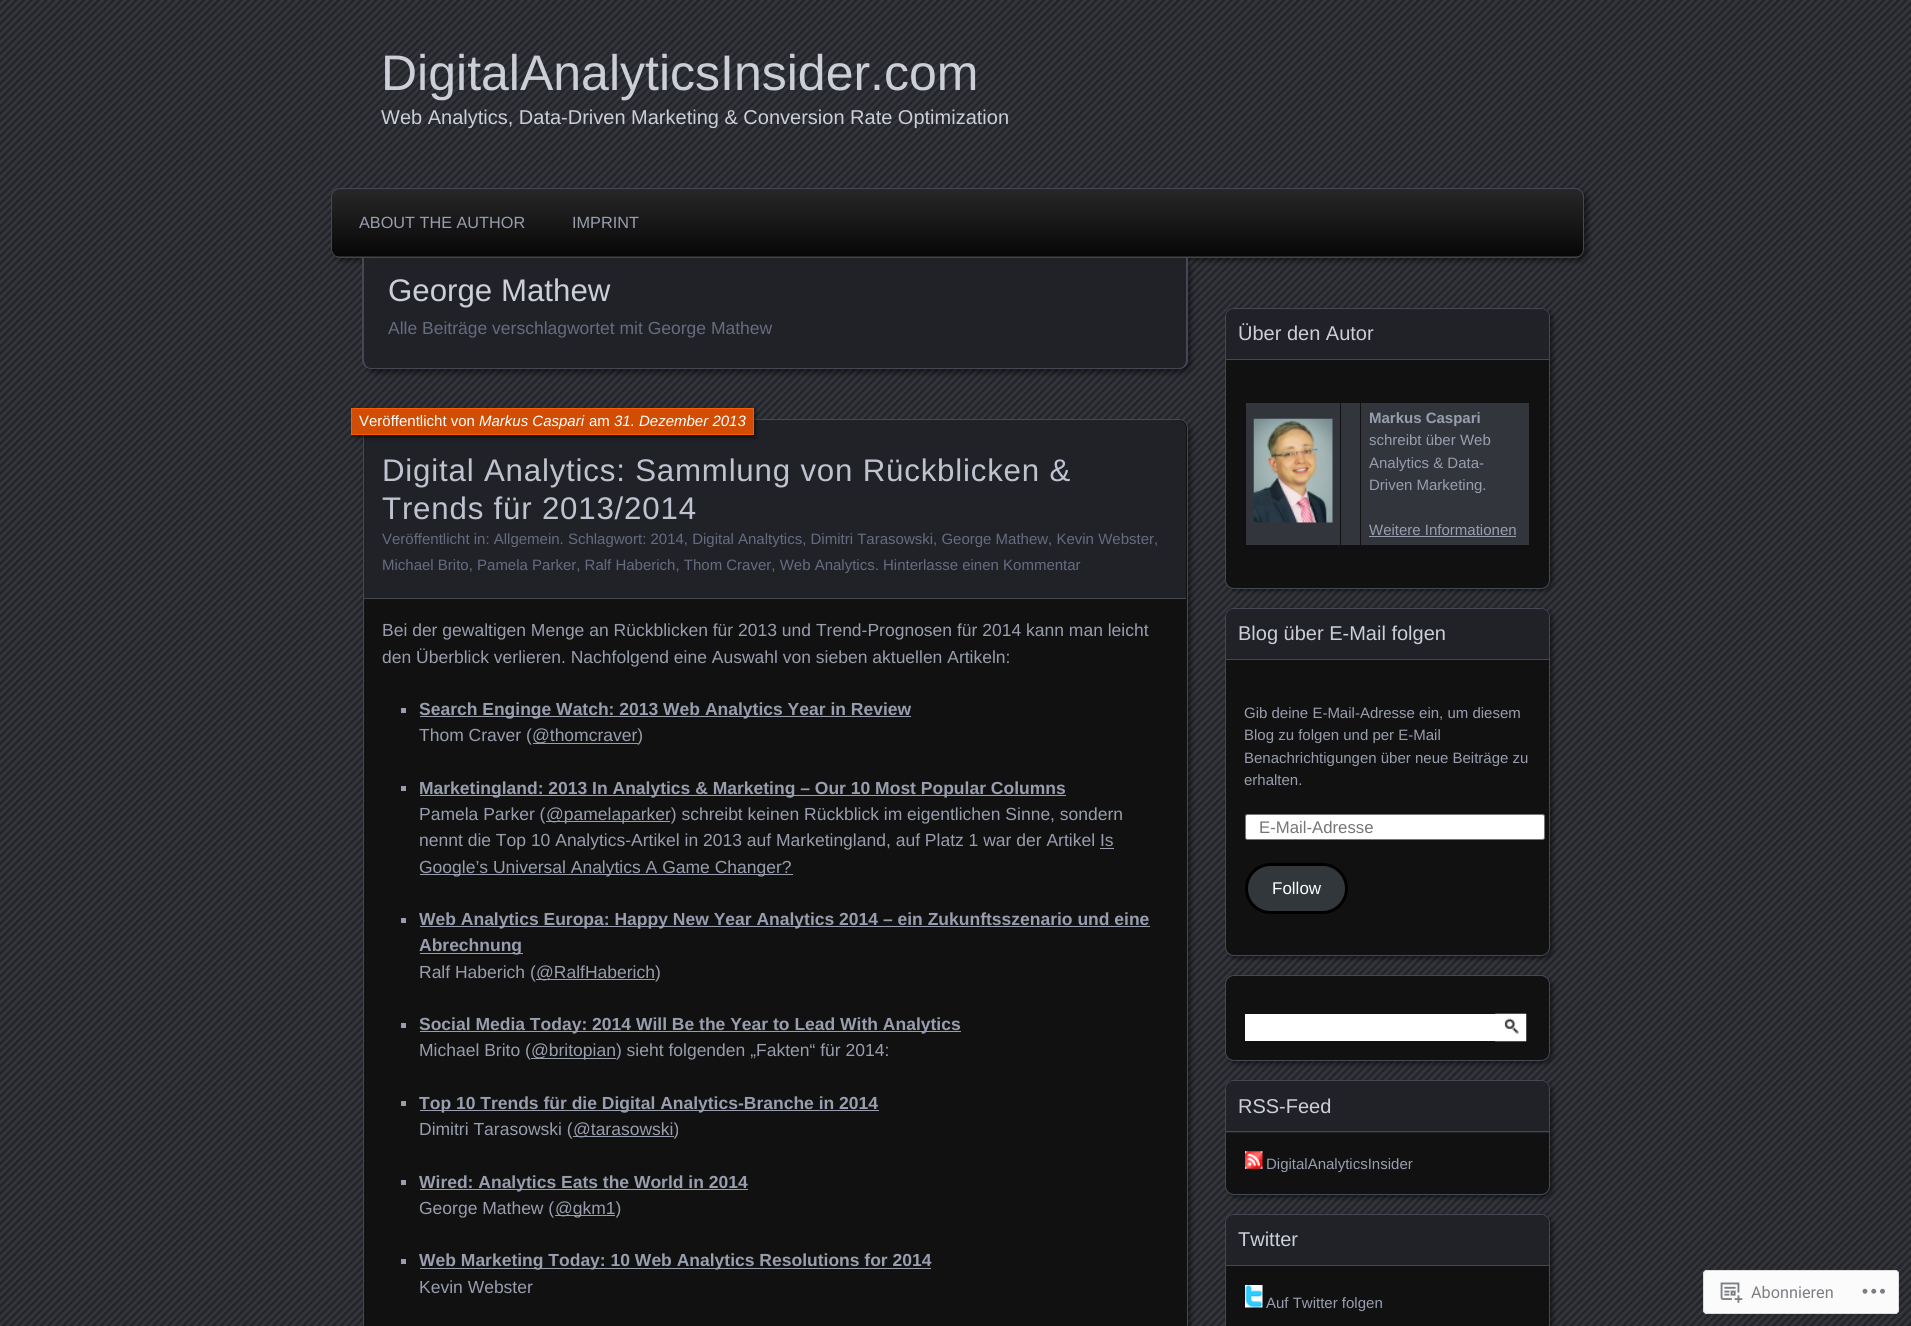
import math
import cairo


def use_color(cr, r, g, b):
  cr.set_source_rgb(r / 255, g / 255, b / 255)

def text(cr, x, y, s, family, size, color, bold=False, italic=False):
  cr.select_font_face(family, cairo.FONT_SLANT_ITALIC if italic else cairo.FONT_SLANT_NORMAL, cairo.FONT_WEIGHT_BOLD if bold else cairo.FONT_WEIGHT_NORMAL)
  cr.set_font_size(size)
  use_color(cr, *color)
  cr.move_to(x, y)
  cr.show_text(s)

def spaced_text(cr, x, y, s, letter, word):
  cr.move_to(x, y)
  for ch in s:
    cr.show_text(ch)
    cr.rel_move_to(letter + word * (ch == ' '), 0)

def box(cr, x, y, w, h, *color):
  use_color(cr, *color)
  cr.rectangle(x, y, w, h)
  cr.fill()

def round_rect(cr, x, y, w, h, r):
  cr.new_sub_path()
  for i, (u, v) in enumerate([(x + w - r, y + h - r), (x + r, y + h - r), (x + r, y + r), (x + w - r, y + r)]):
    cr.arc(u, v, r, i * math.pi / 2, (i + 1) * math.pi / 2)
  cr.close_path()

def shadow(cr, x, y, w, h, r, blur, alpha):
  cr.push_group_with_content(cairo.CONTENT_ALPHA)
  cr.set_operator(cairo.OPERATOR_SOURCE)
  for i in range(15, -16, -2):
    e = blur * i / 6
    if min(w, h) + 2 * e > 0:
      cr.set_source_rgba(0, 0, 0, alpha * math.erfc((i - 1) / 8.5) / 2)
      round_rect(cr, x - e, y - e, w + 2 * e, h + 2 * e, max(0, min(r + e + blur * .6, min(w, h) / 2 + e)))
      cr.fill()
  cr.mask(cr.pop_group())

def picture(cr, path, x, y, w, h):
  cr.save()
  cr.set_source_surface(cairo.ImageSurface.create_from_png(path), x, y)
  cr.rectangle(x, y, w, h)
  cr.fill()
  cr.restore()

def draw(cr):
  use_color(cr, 32, 34, 40)
  cr.paint()
  picture(cr, "img_01.png", 0, 0, 1911, 1326)
  use_color(cr, 0, 0, 0)
  shadow(cr, 335, 191, 1253, 70, 9, 2.5, 0.45)
  cr.save()
  round_rect(cr, 331, 188, 1253, 70, 9)
  cr.clip()
  gradient = cairo.LinearGradient(958, 189, 958, 256)
  gradient.add_color_stop_rgba(0.01, 0.153, 0.153, 0.153, 1)
  gradient.add_color_stop_rgba(1, 0.027, 0.027, 0.027, 1)
  cr.set_source(gradient)
  cr.rectangle(331, 189, 1253, 67)
  cr.fill()
  gradient = cairo.LinearGradient(958, 256, 958, 324)
  gradient.add_color_stop_rgba(0.01, 0.153, 0.153, 0.153, 1)
  gradient.add_color_stop_rgba(1, 0.027, 0.027, 0.027, 1)
  cr.set_source(gradient)
  cr.rectangle(331, 256, 1253, 2)
  cr.fill()
  cr.restore()
  round_rect(cr, 331.5, 188.5, 1252, 69, 8.5)
  use_color(cr, 68, 72, 85)
  cr.set_line_width(1)
  cr.stroke()
  use_color(cr, 0, 0, 0)
  shadow(cr, 366, 261, 825, 112, 9, 2.5, 0.45)
  use_color(cr, 32, 34, 40)
  cr.new_path()
  cr.move_to(364, 258)
  cr.line_to(1186, 258)
  cr.line_to(1186, 360)
  cr.curve_to(1186, 364.5, 1182.5, 368, 1178, 368)
  cr.line_to(372, 368)
  cr.curve_to(367.5, 368, 364, 364.5, 364, 360)
  cr.close_path()
  cr.fill()
  use_color(cr, 68, 72, 85)
  cr.set_fill_rule(cairo.FILL_RULE_EVEN_ODD)
  cr.new_path()
  cr.move_to(362, 258)
  cr.line_to(1188, 258)
  cr.line_to(1188, 360)
  cr.curve_to(1188, 365, 1184, 369, 1179, 369)
  cr.line_to(371, 369)
  cr.curve_to(366, 369, 362, 365, 362, 360)
  cr.close_path()
  cr.move_to(364, 258)
  cr.line_to(1186, 258)
  cr.line_to(1186, 360)
  cr.curve_to(1186, 364, 1183, 368, 1179, 368)
  cr.line_to(371, 368)
  cr.curve_to(367, 368, 364, 364, 364, 360)
  cr.close_path()
  cr.fill()
  use_color(cr, 0, 0, 0)
  shadow(cr, 366, 423, 825, 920, 9, 2.5, 0.45)
  use_color(cr, 17, 17, 17)
  round_rect(cr, 363.5, 419.5, 824, 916, 8.5)
  cr.fill_preserve()
  use_color(cr, 68, 72, 85)
  cr.stroke()
  use_color(cr, 32, 34, 40)
  cr.new_path()
  cr.move_to(373, 420)
  cr.line_to(1177, 420)
  cr.curve_to(1182, 420, 1186, 424, 1186, 429)
  cr.line_to(1186, 599)
  cr.line_to(364, 599)
  cr.line_to(364, 429)
  cr.curve_to(364, 424, 368, 420, 373, 420)
  cr.close_path()
  cr.fill()
  box(cr, 364, 598, 822, 1, 68, 72, 85)
  use_color(cr, 0, 0, 0)
  shadow(cr, 354, 410, 402, 28, 0, 2, 0.45)
  use_color(cr, 210, 77, 4)
  cr.rectangle(351.5, 408.5, 402, 26)
  cr.fill_preserve()
  use_color(cr, 255, 90, 0)
  cr.stroke()
  box(cr, 401, 708, 5, 5, 152, 158, 174)
  box(cr, 420, 716, 491, 1, 152, 158, 174)
  box(cr, 533, 743, 105, 1, 152, 158, 174)
  box(cr, 401, 786, 5, 5, 152, 158, 174)
  box(cr, 420, 795, 646, 1, 152, 158, 174)
  box(cr, 546, 821, 124, 1, 152, 158, 174)
  box(cr, 1100, 848, 14, 1, 152, 158, 174)
  box(cr, 420, 874, 373, 1, 152, 158, 174)
  box(cr, 401, 918, 5, 5, 152, 158, 174)
  box(cr, 420, 926, 730, 1, 152, 158, 174)
  box(cr, 420, 953, 103, 1, 152, 158, 174)
  box(cr, 536, 979, 119, 1, 152, 158, 174)
  box(cr, 401, 1023, 5, 5, 152, 158, 174)
  box(cr, 420, 1031, 541, 1, 152, 158, 174)
  box(cr, 531, 1058, 85, 1, 152, 158, 174)
  box(cr, 401, 1101, 5, 5, 152, 158, 174)
  box(cr, 420, 1110, 459, 1, 152, 158, 174)
  box(cr, 573, 1136, 101, 1, 152, 158, 174)
  box(cr, 401, 1180, 5, 5, 152, 158, 174)
  box(cr, 420, 1189, 328, 1, 152, 158, 174)
  box(cr, 555, 1215, 60, 1, 152, 158, 174)
  box(cr, 401, 1259, 5, 5, 152, 158, 174)
  box(cr, 420, 1268, 511, 1, 152, 158, 174)
  use_color(cr, 0, 0, 0)
  shadow(cr, 1228, 310, 325, 281, 9, 2, 0.45)
  use_color(cr, 17, 17, 17)
  round_rect(cr, 1225.5, 308.5, 324, 280, 8.5)
  cr.fill_preserve()
  use_color(cr, 68, 72, 85)
  cr.stroke()
  use_color(cr, 32, 34, 40)
  cr.new_path()
  cr.move_to(1234, 309)
  cr.line_to(1541, 309)
  cr.curve_to(1545.5, 309, 1549, 312.5, 1549, 317)
  cr.line_to(1549, 360)
  cr.line_to(1226, 360)
  cr.line_to(1226, 317)
  cr.curve_to(1226, 312.5, 1229.5, 309, 1234, 309)
  cr.close_path()
  cr.fill()
  box(cr, 1226, 359, 323, 1, 68, 72, 85)
  box(cr, 1246, 403, 94, 142, 51, 53, 61)
  picture(cr, "img_02.png", 1253, 418, 80, 105)
  box(cr, 1341, 403, 19, 142, 51, 53, 61)
  box(cr, 1361, 403, 168, 142, 51, 53, 61)
  box(cr, 1369, 536, 147, 1, 152, 158, 174)
  use_color(cr, 0, 0, 0)
  shadow(cr, 1228, 610, 325, 349, 9, 2, 0.45)
  use_color(cr, 17, 17, 17)
  round_rect(cr, 1225.5, 608.5, 324, 347, 8.5)
  cr.fill_preserve()
  use_color(cr, 68, 72, 85)
  cr.stroke()
  use_color(cr, 32, 34, 40)
  cr.new_path()
  cr.move_to(1234, 609)
  cr.line_to(1541, 609)
  cr.curve_to(1545.5, 609, 1549, 612.5, 1549, 617)
  cr.line_to(1549, 660)
  cr.line_to(1226, 660)
  cr.line_to(1226, 617)
  cr.curve_to(1226, 612.5, 1229.5, 609, 1234, 609)
  cr.close_path()
  cr.fill()
  box(cr, 1226, 659, 323, 1, 68, 72, 85)
  use_color(cr, 255, 255, 255)
  round_rect(cr, 1245.5, 814.5, 299, 25, 2)
  cr.fill_preserve()
  use_color(cr, 118, 118, 118)
  cr.stroke()
  use_color(cr, 50, 55, 60)
  round_rect(cr, 1246.5, 864.5, 100, 48, 24)
  cr.fill_preserve()
  use_color(cr, 0, 0, 0)
  cr.set_line_width(3)
  cr.stroke()
  use_color(cr, 0, 0, 0)
  shadow(cr, 1228, 978, 325, 86, 9, 2, 0.45)
  use_color(cr, 17, 17, 17)
  round_rect(cr, 1225.5, 975.5, 324, 85, 8.5)
  cr.fill_preserve()
  use_color(cr, 68, 72, 85)
  cr.set_line_width(1)
  cr.stroke()
  box(cr, 1245, 1014, 250, 27, 255, 255, 255)
  picture(cr, "img_03.png", 1495, 1013, 32, 29)
  use_color(cr, 0, 0, 0)
  shadow(cr, 1228, 1083, 325, 115, 9, 2, 0.45)
  use_color(cr, 17, 17, 17)
  round_rect(cr, 1225.5, 1080.5, 324, 114, 8.5)
  cr.fill_preserve()
  use_color(cr, 68, 72, 85)
  cr.stroke()
  use_color(cr, 32, 34, 40)
  cr.new_path()
  cr.move_to(1234, 1081)
  cr.line_to(1541, 1081)
  cr.curve_to(1545.5, 1081, 1549, 1084.5, 1549, 1089)
  cr.line_to(1549, 1133)
  cr.line_to(1226, 1133)
  cr.line_to(1226, 1089)
  cr.curve_to(1226, 1084.5, 1229.5, 1081, 1234, 1081)
  cr.close_path()
  cr.fill()
  box(cr, 1226, 1131, 323, 1, 68, 72, 85)
  picture(cr, "img_04.png", 1245, 1151, 18, 18)
  use_color(cr, 0, 0, 0)
  shadow(cr, 1228, 1216, 325, 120, 9, 2, 0.45)
  use_color(cr, 17, 17, 17)
  round_rect(cr, 1225.5, 1214.5, 324, 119, 8.5)
  cr.fill_preserve()
  use_color(cr, 68, 72, 85)
  cr.stroke()
  use_color(cr, 32, 34, 40)
  cr.new_path()
  cr.move_to(1234, 1215)
  cr.line_to(1541, 1215)
  cr.curve_to(1545.5, 1215, 1549, 1218.5, 1549, 1223)
  cr.line_to(1549, 1266)
  cr.line_to(1226, 1266)
  cr.line_to(1226, 1223)
  cr.curve_to(1226, 1218.5, 1229.5, 1215, 1234, 1215)
  cr.close_path()
  cr.fill()
  box(cr, 1226, 1265, 323, 1, 68, 72, 85)
  picture(cr, "img_05.png", 1245, 1285, 18, 23)
  cr.set_source_rgba(1, 1, 1, 0.98)
  round_rect(cr, 1703, 1270, 196, 44, 4)
  cr.fill()
  round_rect(cr, 1703.5, 1270.5, 195, 43, 3.5)
  cr.set_source_rgba(0.863, 0.863, 0.871, 0.98)
  cr.stroke()
  picture(cr, "img_06.png", 1720, 1282, 23, 21)
  picture(cr, "img_07.png", 1862, 1288, 23, 6)
  text(cr, 381, 90, "DigitalAnalyticsInsider.com", "Liberation Sans", 50, (204, 207, 215))
  text(cr, 381, 124, "Web Analytics, Data-Driven Marketing & Conversion Rate Optimization", "Liberation Sans", 20, (204, 207, 215))
  text(cr, 359, 228, "ABOUT THE AUTHOR", "Liberation Sans", 16.25, (152, 158, 174))
  text(cr, 572, 228, "IMPRINT", "Liberation Sans", 16.25, (152, 158, 174))
  text(cr, 388, 301, "George Mathew", "Liberation Sans", 31.25, (204, 207, 215))
  text(cr, 388, 334, "Alle Beiträge verschlagwortet mit George Mathew", "Liberation Sans", 17.5, (102, 108, 127))
  text(cr, 359, 426, "Veröffentlicht von", "Liberation Sans", 15, (255, 255, 255))
  text(cr, 479, 426, "Markus Caspari", "Liberation Sans", 15, (255, 255, 255), italic=True)
  text(cr, 589, 426, "am", "Liberation Sans", 15, (255, 255, 255))
  text(cr, 614, 426, "31. Dezember 2013", "Liberation Sans", 15, (255, 255, 255), italic=True)
  cr.select_font_face("Liberation Sans")
  cr.set_font_size(31.25)
  use_color(cr, 191, 195, 207)
  spaced_text(cr, 382, 481, "Digital Analytics: Sammlung von Rückblicken &", 0.8, 0)
  spaced_text(cr, 382, 519, "Trends für 2013/2014", 0.8, 0)
  text(cr, 382, 544, "Veröffentlicht in: Allgemein. Schlagwort: 2014, Digital Analtytics, Dimitri Tarasowski, George Mathew, Kevin Webster,", "Liberation Sans", 15, (102, 108, 127))
  text(cr, 382, 570, "Michael Brito, Pamela Parker, Ralf Haberich, Thom Craver, Web Analytics. Hinterlasse einen Kommentar", "Liberation Sans", 15, (102, 108, 127))
  text(cr, 382, 636, "Bei der gewaltigen Menge an Rückblicken für 2013 und Trend-Prognosen für 2014 kann man leicht", "Liberation Sans", 17.5, (152, 158, 174))
  text(cr, 382, 663, "den Überblick verlieren. Nachfolgend eine Auswahl von sieben aktuellen Artikeln:", "Liberation Sans", 17.5, (152, 158, 174))
  text(cr, 419, 715, "Search Enginge Watch: 2013 Web Analytics Year in Review", "Liberation Sans", 17.5, (152, 158, 174), bold=True)
  text(cr, 419, 741, "Thom Craver (", "Liberation Sans", 17.5, (152, 158, 174))
  text(cr, 532, 741, "@thomcraver)", "Liberation Sans", 17.5, (152, 158, 174))
  text(cr, 419, 794, "Marketingland: 2013 In Analytics & Marketing – Our 10 Most Popular Columns", "Liberation Sans", 17.5, (152, 158, 174), bold=True)
  text(cr, 419, 820, "Pamela Parker (", "Liberation Sans", 17.5, (152, 158, 174))
  text(cr, 546, 820, "@pamelaparker) schreibt keinen Rückblick im eigentlichen Sinne, sondern", "Liberation Sans", 17.5, (152, 158, 174))
  text(cr, 419, 846, "nennt die Top 10 Analytics-Artikel in 2013 auf Marketingland, auf Platz 1 war der Artikel Is", "Liberation Sans", 17.5, (152, 158, 174))
  text(cr, 419, 873, "Google’s Universal Analytics A Game Changer?", "Liberation Sans", 17.5, (152, 158, 174))
  text(cr, 419, 925, "Web Analytics Europa: Happy New Year Analytics 2014 – ein Zukunftsszenario und eine", "Liberation Sans", 17.5, (152, 158, 174), bold=True)
  text(cr, 419, 951, "Abrechnung", "Liberation Sans", 17.5, (152, 158, 174), bold=True)
  text(cr, 419, 978, "Ralf Haberich (", "Liberation Sans", 17.5, (152, 158, 174))
  text(cr, 536, 978, "@RalfHaberich)", "Liberation Sans", 17.5, (152, 158, 174))
  text(cr, 419, 1030, "Social Media Today: 2014 Will Be the Year to Lead With Analytics", "Liberation Sans", 17.5, (152, 158, 174), bold=True)
  text(cr, 419, 1056, "Michael Brito (", "Liberation Sans", 17.5, (152, 158, 174))
  text(cr, 531, 1056, "@britopian) sieht folgenden „Fakten“ für 2014:", "Liberation Sans", 17.5, (152, 158, 174))
  text(cr, 419, 1109, "Top 10 Trends für die Digital Analytics-Branche in 2014", "Liberation Sans", 17.5, (152, 158, 174), bold=True)
  text(cr, 419, 1135, "Dimitri Tarasowski (", "Liberation Sans", 17.5, (152, 158, 174))
  text(cr, 573, 1135, "@tarasowski)", "Liberation Sans", 17.5, (152, 158, 174))
  text(cr, 419, 1188, "Wired: Analytics Eats the World in 2014", "Liberation Sans", 17.5, (152, 158, 174), bold=True)
  text(cr, 419, 1214, "George Mathew (", "Liberation Sans", 17.5, (152, 158, 174))
  text(cr, 555, 1214, "@gkm1)", "Liberation Sans", 17.5, (152, 158, 174))
  text(cr, 419, 1266, "Web Marketing Today: 10 Web Analytics Resolutions for 2014", "Liberation Sans", 17.5, (152, 158, 174), bold=True)
  text(cr, 419, 1293, "Kevin Webster", "Liberation Sans", 17.5, (152, 158, 174))
  text(cr, 1238, 340, "Über den Autor", "Liberation Sans", 20, (204, 207, 215))
  text(cr, 1369, 423, "Markus Caspari", "Liberation Sans", 15, (152, 158, 174), bold=True)
  text(cr, 1369, 445, "schreibt über Web", "Liberation Sans", 15, (152, 158, 174))
  text(cr, 1369, 468, "Analytics & Data-", "Liberation Sans", 15, (152, 158, 174))
  text(cr, 1369, 490, "Driven Marketing.", "Liberation Sans", 15, (152, 158, 174))
  text(cr, 1369, 535, "Weitere Informationen", "Liberation Sans", 15, (152, 158, 174))
  text(cr, 1238, 640, "Blog über E-Mail folgen", "Liberation Sans", 20, (204, 207, 215))
  text(cr, 1244, 718, "Gib deine E-Mail-Adresse ein, um diesem", "Liberation Sans", 15, (152, 158, 174))
  text(cr, 1244, 740, "Blog zu folgen und per E-Mail", "Liberation Sans", 15, (152, 158, 174))
  text(cr, 1244, 763, "Benachrichtigungen über neue Beiträge zu", "Liberation Sans", 15, (152, 158, 174))
  text(cr, 1244, 785, "erhalten.", "Liberation Sans", 15, (152, 158, 174))
  text(cr, 1259, 833, "E-Mail-Adresse", "Liberation Sans", 16.75, (117, 117, 117))
  text(cr, 1272, 894, "Follow", "Liberation Sans", 17, (255, 255, 255))
  text(cr, 1238, 1113, "RSS-Feed", "Liberation Sans", 20, (204, 207, 215))
  text(cr, 1266, 1169, "DigitalAnalyticsInsider", "Liberation Sans", 15, (152, 158, 174))
  text(cr, 1238, 1246, "Twitter", "Liberation Sans", 20, (204, 207, 215))
  text(cr, 1266, 1308, "Auf Twitter folgen", "Liberation Sans", 15, (152, 158, 174))
  text(cr, 1751, 1298, "Abonnieren", "Roboto", 16.25, (123, 127, 132))


surface = cairo.ImageSurface(cairo.FORMAT_RGB24, 1911, 1326)
cr = cairo.Context(surface)
options = cairo.FontOptions()
options.set_hint_metrics(cairo.HINT_METRICS_OFF)
options.set_hint_style(cairo.HINT_STYLE_NONE)
cr.set_font_options(options)
cr.set_miter_limit(4)
draw(cr)
surface.write_to_png("out.png")
